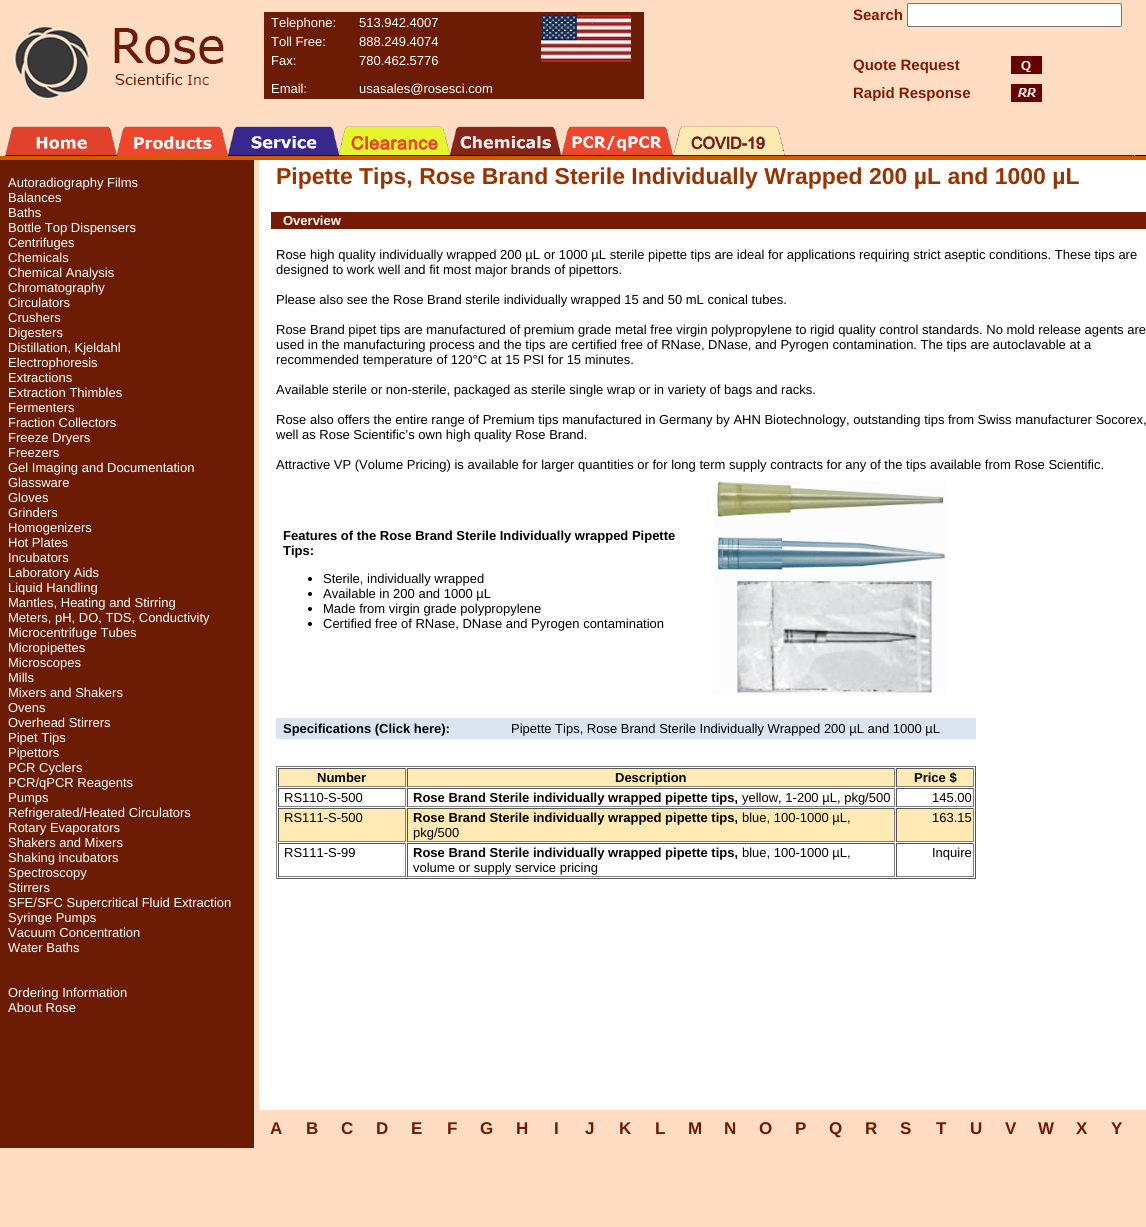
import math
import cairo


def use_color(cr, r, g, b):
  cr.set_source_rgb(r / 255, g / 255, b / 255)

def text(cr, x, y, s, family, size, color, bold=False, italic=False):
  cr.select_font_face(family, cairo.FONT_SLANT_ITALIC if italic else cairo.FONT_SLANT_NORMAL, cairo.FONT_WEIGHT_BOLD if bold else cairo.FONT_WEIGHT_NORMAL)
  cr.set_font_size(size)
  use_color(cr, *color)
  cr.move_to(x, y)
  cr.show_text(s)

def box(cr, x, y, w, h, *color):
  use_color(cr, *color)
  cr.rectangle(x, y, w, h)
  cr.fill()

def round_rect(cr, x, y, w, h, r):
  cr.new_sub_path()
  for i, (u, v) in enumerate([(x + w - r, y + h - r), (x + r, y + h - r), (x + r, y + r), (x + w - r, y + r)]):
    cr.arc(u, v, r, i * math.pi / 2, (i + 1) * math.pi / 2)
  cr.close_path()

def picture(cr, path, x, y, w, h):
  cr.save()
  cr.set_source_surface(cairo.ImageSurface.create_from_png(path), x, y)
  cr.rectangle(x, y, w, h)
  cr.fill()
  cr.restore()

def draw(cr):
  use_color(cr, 255, 220, 194)
  cr.paint()
  picture(cr, "img_01.png", 14, 26, 210, 73)
  box(cr, 264, 12, 380, 87, 108, 28, 5)
  picture(cr, "img_02.png", 541, 15, 90, 47)
  use_color(cr, 255, 255, 255)
  round_rect(cr, 907.5, 3.5, 214, 23, 1.5)
  cr.fill_preserve()
  use_color(cr, 118, 118, 118)
  cr.set_line_width(1)
  cr.stroke()
  picture(cr, "img_03.png", 1011, 56, 31, 18)
  picture(cr, "img_04.png", 1011, 84, 31, 18)
  picture(cr, "img_05.png", 5, 126, 1130, 30)
  box(cr, 1135, 155, 11, 1, 0, 0, 0)
  box(cr, 0, 156, 1146, 4, 216, 88, 2)
  box(cr, 0, 160, 254, 988, 108, 28, 5)
  box(cr, 259, 160, 887, 950, 255, 255, 255)
  box(cr, 271, 212, 875, 17, 118, 28, 5)
  use_color(cr, 0, 0, 0)
  cr.arc(310, 579, 2, 0, 2 * math.pi)
  cr.fill()
  cr.arc(310, 594, 2, 0, 2 * math.pi)
  cr.fill()
  cr.arc(310, 609, 2, 0, 2 * math.pi)
  cr.fill()
  cr.arc(310, 624, 2, 0, 2 * math.pi)
  cr.fill()
  picture(cr, "img_06.png", 713, 481, 234, 214)
  box(cr, 276, 718, 700, 21, 219, 229, 241)
  box(cr, 276, 766, 700, 1, 128, 128, 128)
  box(cr, 975, 766, 1, 113, 85, 85, 85)
  box(cr, 276, 878, 700, 1, 85, 85, 85)
  box(cr, 276, 766, 1, 113, 128, 128, 128)
  box(cr, 279, 768, 694, 19, 255, 233, 180)
  box(cr, 278, 768, 128, 1, 85, 85, 85)
  box(cr, 405, 768, 1, 19, 128, 128, 128)
  box(cr, 278, 786, 128, 1, 128, 128, 128)
  box(cr, 278, 768, 1, 19, 85, 85, 85)
  box(cr, 407, 768, 488, 1, 85, 85, 85)
  box(cr, 894, 768, 1, 19, 128, 128, 128)
  box(cr, 407, 786, 488, 1, 128, 128, 128)
  box(cr, 407, 768, 1, 19, 85, 85, 85)
  box(cr, 896, 768, 78, 1, 85, 85, 85)
  box(cr, 973, 768, 1, 19, 128, 128, 128)
  box(cr, 896, 786, 78, 1, 128, 128, 128)
  box(cr, 896, 768, 1, 19, 85, 85, 85)
  box(cr, 278, 788, 128, 1, 85, 85, 85)
  box(cr, 405, 788, 1, 19, 128, 128, 128)
  box(cr, 278, 806, 128, 1, 128, 128, 128)
  box(cr, 278, 788, 1, 19, 85, 85, 85)
  box(cr, 407, 788, 488, 1, 85, 85, 85)
  box(cr, 894, 788, 1, 19, 128, 128, 128)
  box(cr, 407, 806, 488, 1, 128, 128, 128)
  box(cr, 407, 788, 1, 19, 85, 85, 85)
  box(cr, 896, 788, 78, 1, 85, 85, 85)
  box(cr, 973, 788, 1, 19, 128, 128, 128)
  box(cr, 896, 806, 78, 1, 128, 128, 128)
  box(cr, 896, 788, 1, 19, 85, 85, 85)
  box(cr, 279, 808, 694, 34, 255, 233, 180)
  box(cr, 278, 808, 128, 1, 85, 85, 85)
  box(cr, 405, 808, 1, 34, 128, 128, 128)
  box(cr, 278, 841, 128, 1, 128, 128, 128)
  box(cr, 278, 808, 1, 34, 85, 85, 85)
  box(cr, 407, 808, 488, 1, 85, 85, 85)
  box(cr, 894, 808, 1, 34, 128, 128, 128)
  box(cr, 407, 841, 488, 1, 128, 128, 128)
  box(cr, 407, 808, 1, 34, 85, 85, 85)
  box(cr, 896, 808, 78, 1, 85, 85, 85)
  box(cr, 973, 808, 1, 34, 128, 128, 128)
  box(cr, 896, 841, 78, 1, 128, 128, 128)
  box(cr, 896, 808, 1, 34, 85, 85, 85)
  box(cr, 278, 843, 128, 1, 85, 85, 85)
  box(cr, 405, 843, 1, 34, 128, 128, 128)
  box(cr, 278, 876, 128, 1, 128, 128, 128)
  box(cr, 278, 843, 1, 34, 85, 85, 85)
  box(cr, 407, 843, 488, 1, 85, 85, 85)
  box(cr, 894, 843, 1, 34, 128, 128, 128)
  box(cr, 407, 876, 488, 1, 128, 128, 128)
  box(cr, 407, 843, 1, 34, 85, 85, 85)
  box(cr, 896, 843, 78, 1, 85, 85, 85)
  box(cr, 973, 843, 1, 34, 128, 128, 128)
  box(cr, 896, 876, 78, 1, 128, 128, 128)
  box(cr, 896, 843, 1, 34, 85, 85, 85)
  text(cr, 271, 27, "Telephone:", "Liberation Sans", 13, (255, 255, 255))
  text(cr, 359, 27, "513.942.4007", "Liberation Sans", 13, (255, 255, 255))
  text(cr, 271, 46, "Toll Free:", "Liberation Sans", 13, (255, 255, 255))
  text(cr, 359, 46, "888.249.4074", "Liberation Sans", 13, (255, 255, 255))
  text(cr, 271, 65, "Fax:", "Liberation Sans", 13, (255, 255, 255))
  text(cr, 359, 65, "780.462.5776", "Liberation Sans", 13, (255, 255, 255))
  text(cr, 271, 93, "Email:", "Liberation Sans", 13, (255, 255, 255))
  text(cr, 359, 93, "usasales@rosesci.com", "Liberation Sans", 13, (255, 255, 255))
  text(cr, 853, 20, "Search", "Liberation Sans", 15, (128, 28, 5), bold=True)
  text(cr, 853, 70, "Quote Request", "Liberation Sans", 15, (128, 28, 5), bold=True)
  text(cr, 853, 98, "Rapid Response", "Liberation Sans", 15, (128, 28, 5), bold=True)
  text(cr, 8, 187, "Autoradiography Films", "Liberation Sans", 13, (255, 255, 255))
  text(cr, 8, 202, "Balances", "Liberation Sans", 13, (255, 255, 255))
  text(cr, 8, 217, "Baths", "Liberation Sans", 13, (255, 255, 255))
  text(cr, 8, 232, "Bottle Top Dispensers", "Liberation Sans", 13, (255, 255, 255))
  text(cr, 8, 247, "Centrifuges", "Liberation Sans", 13, (255, 255, 255))
  text(cr, 8, 262, "Chemicals", "Liberation Sans", 13, (255, 255, 255))
  text(cr, 8, 277, "Chemical Analysis", "Liberation Sans", 13, (255, 255, 255))
  text(cr, 8, 292, "Chromatography", "Liberation Sans", 13, (255, 255, 255))
  text(cr, 8, 307, "Circulators", "Liberation Sans", 13, (255, 255, 255))
  text(cr, 8, 322, "Crushers", "Liberation Sans", 13, (255, 255, 255))
  text(cr, 8, 337, "Digesters", "Liberation Sans", 13, (255, 255, 255))
  text(cr, 8, 352, "Distillation, Kjeldahl", "Liberation Sans", 13, (255, 255, 255))
  text(cr, 8, 367, "Electrophoresis", "Liberation Sans", 13, (255, 255, 255))
  text(cr, 8, 382, "Extractions", "Liberation Sans", 13, (255, 255, 255))
  text(cr, 8, 397, "Extraction Thimbles", "Liberation Sans", 13, (255, 255, 255))
  text(cr, 8, 412, "Fermenters", "Liberation Sans", 13, (255, 255, 255))
  text(cr, 8, 427, "Fraction Collectors", "Liberation Sans", 13, (255, 255, 255))
  text(cr, 8, 442, "Freeze Dryers", "Liberation Sans", 13, (255, 255, 255))
  text(cr, 8, 457, "Freezers", "Liberation Sans", 13, (255, 255, 255))
  text(cr, 8, 472, "Gel Imaging and Documentation", "Liberation Sans", 13, (255, 255, 255))
  text(cr, 8, 487, "Glassware", "Liberation Sans", 13, (255, 255, 255))
  text(cr, 8, 502, "Gloves", "Liberation Sans", 13, (255, 255, 255))
  text(cr, 8, 517, "Grinders", "Liberation Sans", 13, (255, 255, 255))
  text(cr, 8, 532, "Homogenizers", "Liberation Sans", 13, (255, 255, 255))
  text(cr, 8, 547, "Hot Plates", "Liberation Sans", 13, (255, 255, 255))
  text(cr, 8, 562, "Incubators", "Liberation Sans", 13, (255, 255, 255))
  text(cr, 8, 577, "Laboratory Aids", "Liberation Sans", 13, (255, 255, 255))
  text(cr, 8, 592, "Liquid Handling", "Liberation Sans", 13, (255, 255, 255))
  text(cr, 8, 607, "Mantles, Heating and Stirring", "Liberation Sans", 13, (255, 255, 255))
  text(cr, 8, 622, "Meters, pH, DO, TDS, Conductivity", "Liberation Sans", 13, (255, 255, 255))
  text(cr, 8, 637, "Microcentrifuge Tubes", "Liberation Sans", 13, (255, 255, 255))
  text(cr, 8, 652, "Micropipettes", "Liberation Sans", 13, (255, 255, 255))
  text(cr, 8, 667, "Microscopes", "Liberation Sans", 13, (255, 255, 255))
  text(cr, 8, 682, "Mills", "Liberation Sans", 13, (255, 255, 255))
  text(cr, 8, 697, "Mixers and Shakers", "Liberation Sans", 13, (255, 255, 255))
  text(cr, 8, 712, "Ovens", "Liberation Sans", 13, (255, 255, 255))
  text(cr, 8, 727, "Overhead Stirrers", "Liberation Sans", 13, (255, 255, 255))
  text(cr, 8, 742, "Pipet Tips", "Liberation Sans", 13, (255, 255, 255))
  text(cr, 8, 757, "Pipettors", "Liberation Sans", 13, (255, 255, 255))
  text(cr, 8, 772, "PCR Cyclers", "Liberation Sans", 13, (255, 255, 255))
  text(cr, 8, 787, "PCR/qPCR Reagents", "Liberation Sans", 13, (255, 255, 255))
  text(cr, 8, 802, "Pumps", "Liberation Sans", 13, (255, 255, 255))
  text(cr, 8, 817, "Refrigerated/Heated Circulators", "Liberation Sans", 13, (255, 255, 255))
  text(cr, 8, 832, "Rotary Evaporators", "Liberation Sans", 13, (255, 255, 255))
  text(cr, 8, 847, "Shakers and Mixers", "Liberation Sans", 13, (255, 255, 255))
  text(cr, 8, 862, "Shaking incubators", "Liberation Sans", 13, (255, 255, 255))
  text(cr, 8, 877, "Spectroscopy", "Liberation Sans", 13, (255, 255, 255))
  text(cr, 8, 892, "Stirrers", "Liberation Sans", 13, (255, 255, 255))
  text(cr, 8, 907, "SFE/SFC Supercritical Fluid Extraction", "Liberation Sans", 13, (255, 255, 255))
  text(cr, 8, 922, "Syringe Pumps", "Liberation Sans", 13, (255, 255, 255))
  text(cr, 8, 937, "Vacuum Concentration", "Liberation Sans", 13, (255, 255, 255))
  text(cr, 8, 952, "Water Baths", "Liberation Sans", 13, (255, 255, 255))
  text(cr, 8, 997, "Ordering Information", "Liberation Sans", 13, (255, 255, 255))
  text(cr, 8, 1012, "About Rose", "Liberation Sans", 13, (255, 255, 255))
  text(cr, 276, 184, "Pipette Tips, Rose Brand Sterile Individually Wrapped 200 µL and 1000 µL", "Liberation Sans", 23, (153, 51, 0), bold=True)
  text(cr, 283, 225, "Overview", "Liberation Sans", 13, (255, 255, 255), bold=True)
  text(cr, 276, 259, "Rose high quality individually wrapped 200 µL or 1000 µL sterile pipette tips are ideal for applications requiring strict aseptic conditions. These tips are", "Liberation Sans", 13, (0, 0, 0))
  text(cr, 276, 274, "designed to work well and fit most major brands of pipettors.", "Liberation Sans", 13, (0, 0, 0))
  text(cr, 276, 304, "Please also see the Rose Brand sterile individually wrapped 15 and 50 mL conical tubes.", "Liberation Sans", 13, (0, 0, 0))
  text(cr, 276, 334, "Rose Brand pipet tips are manufactured of premium grade metal free virgin polypropylene to rigid quality control standards. No mold release agents are", "Liberation Sans", 13, (0, 0, 0))
  text(cr, 276, 349, "used in the manufacturing process and the tips are certified free of RNase, DNase, and Pyrogen contamination. The tips are autoclavable at a", "Liberation Sans", 13, (0, 0, 0))
  text(cr, 276, 364, "recommended temperature of 120°C at 15 PSI for 15 minutes.", "Liberation Sans", 13, (0, 0, 0))
  text(cr, 276, 394, "Available sterile or non-sterile, packaged as sterile single wrap or in variety of bags and racks.", "Liberation Sans", 13, (0, 0, 0))
  text(cr, 276, 424, "Rose also offers the entire range of Premium tips manufactured in Germany by AHN Biotechnology, outstanding tips from Swiss manufacturer Socorex,", "Liberation Sans", 13, (0, 0, 0))
  text(cr, 276, 439, "well as Rose Scientific’s own high quality Rose Brand.", "Liberation Sans", 13, (0, 0, 0))
  text(cr, 276, 469, "Attractive VP (Volume Pricing) is available for larger quantities or for long term supply contracts for any of the tips available from Rose Scientific.", "Liberation Sans", 13, (0, 0, 0))
  text(cr, 283, 540, "Features of the Rose Brand Sterile Individually wrapped Pipette", "Liberation Sans", 13, (0, 0, 0), bold=True)
  text(cr, 283, 555, "Tips:", "Liberation Sans", 13, (0, 0, 0), bold=True)
  text(cr, 323, 583, "Sterile, individually wrapped", "Liberation Sans", 13, (0, 0, 0))
  text(cr, 323, 598, "Available in 200 and 1000 µL", "Liberation Sans", 13, (0, 0, 0))
  text(cr, 323, 613, "Made from virgin grade polypropylene", "Liberation Sans", 13, (0, 0, 0))
  text(cr, 323, 628, "Certified free of RNase, DNase and Pyrogen contamination", "Liberation Sans", 13, (0, 0, 0))
  text(cr, 283, 733, "Specifications (Click here):", "Liberation Sans", 13, (0, 0, 0), bold=True)
  text(cr, 511, 733, "Pipette Tips, Rose Brand Sterile Individually Wrapped 200 µL and 1000 µL", "Liberation Sans", 13, (0, 0, 0))
  text(cr, 317, 782, "Number", "Liberation Sans", 13, (0, 0, 0), bold=True)
  text(cr, 615, 782, "Description", "Liberation Sans", 13, (0, 0, 0), bold=True)
  text(cr, 914, 782, "Price $", "Liberation Sans", 13, (0, 0, 0), bold=True)
  text(cr, 284, 802, "RS110-S-500", "Liberation Sans", 13, (0, 0, 0))
  text(cr, 413, 802, "Rose Brand Sterile individually wrapped pipette tips,", "Liberation Sans", 13, (0, 0, 0), bold=True)
  text(cr, 742, 802, "yellow, 1-200 µL, pkg/500", "Liberation Sans", 13, (0, 0, 0))
  text(cr, 932, 802, "145.00", "Liberation Sans", 13, (0, 0, 0))
  text(cr, 284, 822, "RS111-S-500", "Liberation Sans", 13, (0, 0, 0))
  text(cr, 413, 822, "Rose Brand Sterile individually wrapped pipette tips,", "Liberation Sans", 13, (0, 0, 0), bold=True)
  text(cr, 742, 822, "blue, 100-1000 µL,", "Liberation Sans", 13, (0, 0, 0))
  text(cr, 413, 837, "pkg/500", "Liberation Sans", 13, (0, 0, 0))
  text(cr, 932, 822, "163.15", "Liberation Sans", 13, (0, 0, 0))
  text(cr, 284, 857, "RS111-S-99", "Liberation Sans", 13, (0, 0, 0))
  text(cr, 413, 857, "Rose Brand Sterile individually wrapped pipette tips,", "Liberation Sans", 13, (0, 0, 0), bold=True)
  text(cr, 742, 857, "blue, 100-1000 µL,", "Liberation Sans", 13, (0, 0, 0))
  text(cr, 413, 872, "volume or supply service pricing", "Liberation Sans", 13, (0, 0, 0))
  text(cr, 932, 857, "Inquire", "Liberation Sans", 13, (0, 0, 0))
  text(cr, 270, 1134, "A", "Liberation Sans", 17, (108, 28, 5), bold=True)
  text(cr, 306, 1134, "B", "Liberation Sans", 17, (108, 28, 5), bold=True)
  text(cr, 341, 1134, "C", "Liberation Sans", 17, (108, 28, 5), bold=True)
  text(cr, 376, 1134, "D", "Liberation Sans", 17, (108, 28, 5), bold=True)
  text(cr, 411, 1134, "E", "Liberation Sans", 17, (108, 28, 5), bold=True)
  text(cr, 447, 1134, "F", "Liberation Sans", 17, (108, 28, 5), bold=True)
  text(cr, 480, 1134, "G", "Liberation Sans", 17, (108, 28, 5), bold=True)
  text(cr, 516, 1134, "H", "Liberation Sans", 17, (108, 28, 5), bold=True)
  text(cr, 554, 1134, "I", "Liberation Sans", 17, (108, 28, 5), bold=True)
  text(cr, 585, 1134, "J", "Liberation Sans", 17, (108, 28, 5), bold=True)
  text(cr, 619, 1134, "K", "Liberation Sans", 17, (108, 28, 5), bold=True)
  text(cr, 655, 1134, "L", "Liberation Sans", 17, (108, 28, 5), bold=True)
  text(cr, 688, 1134, "M", "Liberation Sans", 17, (108, 28, 5), bold=True)
  text(cr, 724, 1134, "N", "Liberation Sans", 17, (108, 28, 5), bold=True)
  text(cr, 759, 1134, "O", "Liberation Sans", 17, (108, 28, 5), bold=True)
  text(cr, 795, 1134, "P", "Liberation Sans", 17, (108, 28, 5), bold=True)
  text(cr, 829, 1134, "Q", "Liberation Sans", 17, (108, 28, 5), bold=True)
  text(cr, 865, 1134, "R", "Liberation Sans", 17, (108, 28, 5), bold=True)
  text(cr, 900, 1134, "S", "Liberation Sans", 17, (108, 28, 5), bold=True)
  text(cr, 936, 1134, "T", "Liberation Sans", 17, (108, 28, 5), bold=True)
  text(cr, 970, 1134, "U", "Liberation Sans", 17, (108, 28, 5), bold=True)
  text(cr, 1005, 1134, "V", "Liberation Sans", 17, (108, 28, 5), bold=True)
  text(cr, 1038, 1134, "W", "Liberation Sans", 17, (108, 28, 5), bold=True)
  text(cr, 1076, 1134, "X", "Liberation Sans", 17, (108, 28, 5), bold=True)
  text(cr, 1111, 1134, "Y", "Liberation Sans", 17, (108, 28, 5), bold=True)


surface = cairo.ImageSurface(cairo.FORMAT_RGB24, 1146, 1227)
cr = cairo.Context(surface)
options = cairo.FontOptions()
options.set_hint_metrics(cairo.HINT_METRICS_OFF)
options.set_hint_style(cairo.HINT_STYLE_NONE)
cr.set_font_options(options)
cr.set_miter_limit(4)
draw(cr)
surface.write_to_png("out.png")
